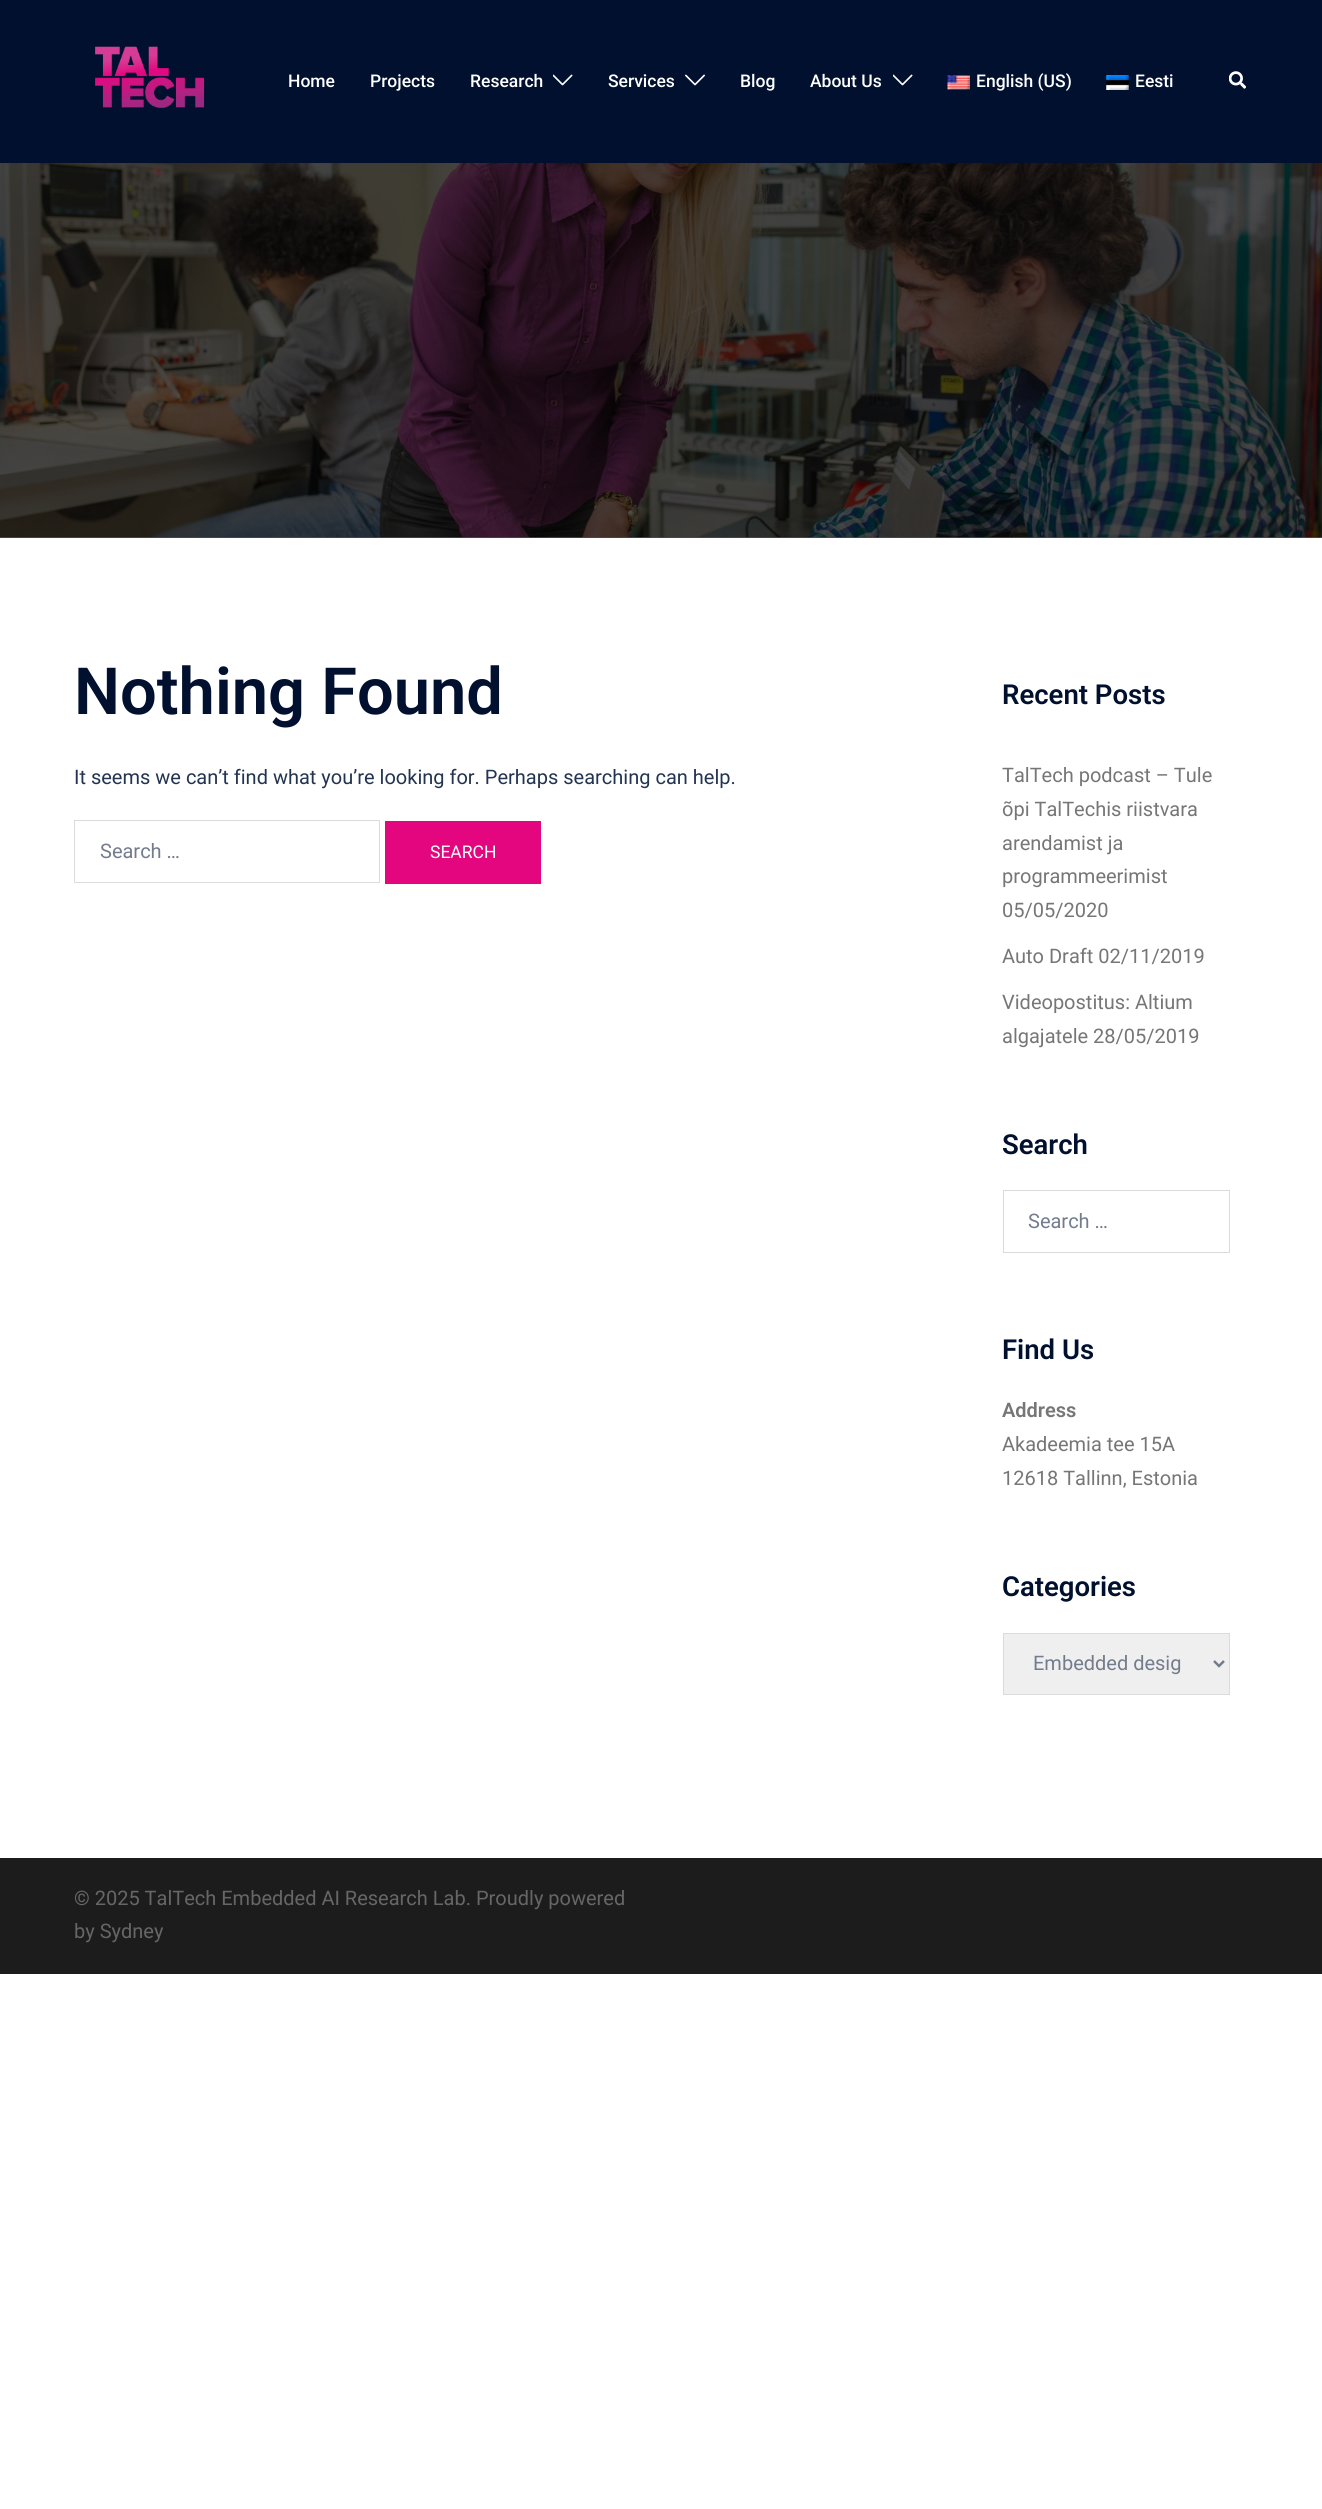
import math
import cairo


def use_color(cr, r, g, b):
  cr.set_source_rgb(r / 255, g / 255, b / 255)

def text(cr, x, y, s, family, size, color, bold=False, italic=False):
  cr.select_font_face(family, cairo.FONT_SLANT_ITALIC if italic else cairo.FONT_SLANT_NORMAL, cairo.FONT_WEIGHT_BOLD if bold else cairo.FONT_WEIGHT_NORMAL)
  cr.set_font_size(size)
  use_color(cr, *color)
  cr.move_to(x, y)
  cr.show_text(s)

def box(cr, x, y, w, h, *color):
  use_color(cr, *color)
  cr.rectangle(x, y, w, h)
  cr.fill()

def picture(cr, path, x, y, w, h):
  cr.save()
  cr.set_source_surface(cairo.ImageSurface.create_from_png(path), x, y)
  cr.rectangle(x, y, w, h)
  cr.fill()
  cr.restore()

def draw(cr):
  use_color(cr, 255, 255, 255)
  cr.paint()
  box(cr, 0, 537, 1322, 1, 77, 77, 77)
  box(cr, 0, 0, 1322, 163, 0, 16, 46)
  picture(cr, "img_01.png", 95, 46, 110, 63)
  picture(cr, "img_02.png", 553, 74, 20, 12)
  picture(cr, "img_03.png", 685, 74, 20, 12)
  picture(cr, "img_02.png", 893, 74, 20, 12)
  picture(cr, "img_04.png", 947, 75, 23, 15)
  picture(cr, "img_05.png", 1106, 75, 23, 15)
  picture(cr, "img_06.png", 1229, 71, 17, 18)
  picture(cr, "img_07.png", 0, 163, 1322, 375)
  cr.rectangle(74.5, 820.5, 305, 62)
  use_color(cr, 219, 219, 219)
  cr.set_line_width(1)
  cr.stroke()
  box(cr, 385, 821, 156, 63, 228, 6, 126)
  cr.rectangle(1003.5, 1190.5, 226, 62)
  use_color(cr, 219, 219, 219)
  cr.stroke()
  use_color(cr, 239, 239, 239)
  cr.rectangle(1003.5, 1633.5, 226, 61)
  cr.fill_preserve()
  use_color(cr, 219, 219, 219)
  cr.stroke()
  cr.new_path()
  cr.move_to(1214, 1661)
  cr.line_to(1219, 1666)
  cr.line_to(1224, 1661)
  use_color(cr, 115, 124, 140)
  cr.set_line_width(2.5)
  cr.stroke()
  box(cr, 0, 1858, 1322, 116, 28, 28, 28)
  text(cr, 288, 87, "Home", "Roboto Medium", 17.5, (255, 255, 255))
  text(cr, 370, 87, "Projects", "Roboto Medium", 17.5, (255, 255, 255))
  text(cr, 470, 87, "Research", "Roboto Medium", 17.5, (255, 255, 255))
  text(cr, 608, 87, "Services", "Roboto Medium", 17.5, (255, 255, 255))
  text(cr, 740, 87, "Blog", "Roboto Medium", 17.5, (255, 255, 255))
  text(cr, 810, 87, "About Us", "Roboto Medium", 17.5, (255, 255, 255))
  text(cr, 976, 87, "English (US)", "Roboto Medium", 17.5, (255, 255, 255))
  text(cr, 1135, 87, "Eesti", "Roboto Medium", 17.5, (255, 255, 255))
  text(cr, 74, 714, "Nothing Found", "Roboto SemiBold", 65, (0, 16, 46))
  text(cr, 74, 784, "It seems we can’t find what you’re looking for. Perhaps searching can help.", "Roboto", 20, (35, 52, 82))
  text(cr, 100, 858, "Search …", "Roboto", 20, (115, 124, 140))
  text(cr, 430, 858, "SEARCH", "Roboto", 17.5, (255, 255, 255))
  text(cr, 1002, 704, "Recent Posts", "Roboto SemiBold", 27.5, (0, 16, 46))
  text(cr, 1002, 782, "TalTech podcast – Tule", "Roboto", 20, (118, 118, 118))
  text(cr, 1002, 816, "õpi TalTechis riistvara", "Roboto", 20, (118, 118, 118))
  text(cr, 1002, 850, "arendamist ja", "Roboto", 20, (118, 118, 118))
  text(cr, 1002, 883, "programmeerimist", "Roboto", 20, (118, 118, 118))
  text(cr, 1002, 917, "05/05/2020", "Roboto", 20, (118, 118, 118))
  text(cr, 1002, 963, "Auto Draft 02/11/2019", "Roboto", 20, (118, 118, 118))
  text(cr, 1002, 1009, "Videopostitus: Altium", "Roboto", 20, (118, 118, 118))
  text(cr, 1002, 1043, "algajatele 28/05/2019", "Roboto", 20, (118, 118, 118))
  text(cr, 1002, 1154, "Search", "Roboto SemiBold", 27.5, (0, 16, 46))
  text(cr, 1028, 1228, "Search …", "Roboto", 20, (115, 124, 140))
  text(cr, 1002, 1359, "Find Us", "Roboto SemiBold", 27.5, (0, 16, 46))
  text(cr, 1002, 1417, "Address", "Roboto SemiBold", 20, (118, 118, 118))
  text(cr, 1002, 1451, "Akadeemia tee 15A", "Roboto", 20, (118, 118, 118))
  text(cr, 1002, 1485, "12618 Tallinn, Estonia", "Roboto", 20, (118, 118, 118))
  text(cr, 1002, 1596, "Categories", "Roboto SemiBold", 27.5, (0, 16, 46))
  text(cr, 1033, 1670, "Embedded desig", "Roboto", 20, (115, 124, 140))
  text(cr, 74, 1905, "© 2025 TalTech Embedded AI Research Lab. Proudly powered", "Roboto", 20, (102, 102, 102))
  text(cr, 74, 1938, "by Sydney", "Roboto", 20, (102, 102, 102))


surface = cairo.ImageSurface(cairo.FORMAT_RGB24, 1322, 2509)
cr = cairo.Context(surface)
options = cairo.FontOptions()
options.set_hint_metrics(cairo.HINT_METRICS_OFF)
options.set_hint_style(cairo.HINT_STYLE_NONE)
cr.set_font_options(options)
cr.set_miter_limit(4)
draw(cr)
surface.write_to_png("out.png")
